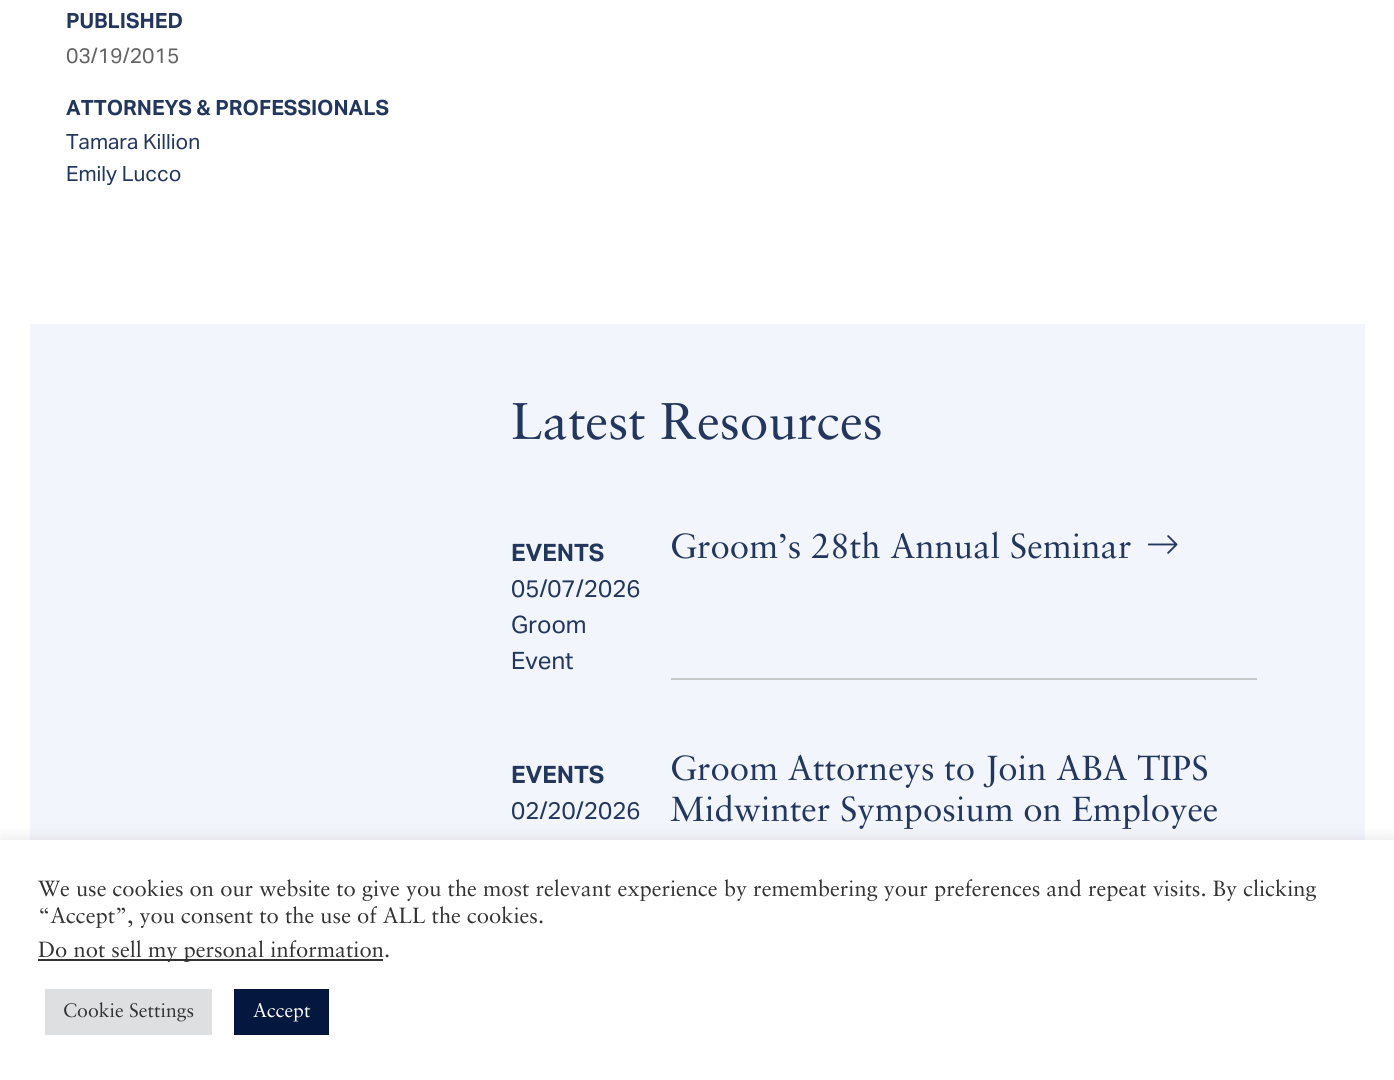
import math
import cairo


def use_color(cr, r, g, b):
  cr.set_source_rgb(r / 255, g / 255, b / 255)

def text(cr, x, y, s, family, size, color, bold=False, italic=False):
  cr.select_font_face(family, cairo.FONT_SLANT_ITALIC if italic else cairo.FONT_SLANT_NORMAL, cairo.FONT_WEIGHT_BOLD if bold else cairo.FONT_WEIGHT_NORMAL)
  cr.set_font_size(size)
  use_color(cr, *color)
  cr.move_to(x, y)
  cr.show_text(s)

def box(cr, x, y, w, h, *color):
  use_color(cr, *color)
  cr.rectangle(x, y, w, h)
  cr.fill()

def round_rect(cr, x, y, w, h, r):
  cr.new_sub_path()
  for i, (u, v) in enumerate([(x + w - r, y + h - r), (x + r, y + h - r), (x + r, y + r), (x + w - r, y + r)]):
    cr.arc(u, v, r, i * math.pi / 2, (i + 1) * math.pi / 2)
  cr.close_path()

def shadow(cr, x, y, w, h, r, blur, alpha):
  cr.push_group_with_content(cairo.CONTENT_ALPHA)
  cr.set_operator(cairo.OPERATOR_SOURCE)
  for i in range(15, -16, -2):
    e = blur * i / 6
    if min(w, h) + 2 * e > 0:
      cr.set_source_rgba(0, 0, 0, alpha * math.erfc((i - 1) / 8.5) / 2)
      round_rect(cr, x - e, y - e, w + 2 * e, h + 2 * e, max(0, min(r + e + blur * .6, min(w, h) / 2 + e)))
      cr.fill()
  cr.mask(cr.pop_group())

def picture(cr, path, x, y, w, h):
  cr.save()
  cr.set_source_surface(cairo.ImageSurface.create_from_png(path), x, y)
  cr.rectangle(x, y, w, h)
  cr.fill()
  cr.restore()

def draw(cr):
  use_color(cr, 255, 255, 255)
  cr.paint()
  box(cr, 30, 324, 1335, 516, 242, 245, 251)
  box(cr, 671, 678, 586, 2, 197, 199, 201)
  picture(cr, "img_01.png", 1148, 535, 30, 19)
  use_color(cr, 172, 171, 171)
  shadow(cr, 0, 839, 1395, 240, 0, 7.5, 0.3)
  box(cr, 0, 840, 1394, 240, 255, 255, 255)
  box(cr, 38, 959, 345, 2, 51, 51, 51)
  box(cr, 45, 989, 167, 46, 222, 223, 224)
  box(cr, 234, 989, 95, 46, 4, 24, 63)
  text(cr, 66, 28, "PUBLISHED", "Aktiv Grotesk", 21, (35, 55, 94), bold=True)
  text(cr, 66, 63, "03/19/2015", "Aktiv Grotesk", 21, (99, 99, 99))
  text(cr, 66, 115, "ATTORNEYS & PROFESSIONALS", "Aktiv Grotesk", 21, (35, 55, 94), bold=True)
  text(cr, 66, 149, "Tamara Killion", "Aktiv Grotesk", 21, (35, 55, 94))
  text(cr, 66, 181, "Emily Lucco", "Aktiv Grotesk", 21, (35, 55, 94))
  text(cr, 511, 439, "Latest Resources", "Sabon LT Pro", 51.5, (35, 55, 94))
  text(cr, 511, 561, "EVENTS", "Aktiv Grotesk", 24, (35, 55, 94), bold=True)
  text(cr, 511, 597, "05/07/2026", "Aktiv Grotesk", 24, (35, 55, 94))
  text(cr, 511, 633, "Groom", "Aktiv Grotesk", 24, (35, 55, 94))
  text(cr, 511, 669, "Event", "Aktiv Grotesk", 24, (35, 55, 94))
  text(cr, 670, 558, "Groom’s 28th Annual Seminar", "Sabon LT Pro", 34.75, (35, 55, 94))
  text(cr, 511, 783, "EVENTS", "Aktiv Grotesk", 24, (35, 55, 94), bold=True)
  text(cr, 511, 819, "02/20/2026", "Aktiv Grotesk", 24, (35, 55, 94))
  text(cr, 670, 780, "Groom Attorneys to Join ABA TIPS", "Sabon LT Pro", 34.75, (35, 55, 94))
  text(cr, 670, 821, "Midwinter Symposium on Employee", "Sabon LT Pro", 34.75, (35, 55, 94))
  text(cr, 38, 896, "We use cookies on our website to give you the most relevant experience by remembering your preferences and repeat visits. By clicking", "Sabon LT Pro", 22, (51, 51, 51))
  text(cr, 38, 923, "“Accept”, you consent to the use of ALL the cookies.", "Sabon LT Pro", 22, (51, 51, 51))
  text(cr, 38, 957, "Do not sell my personal information.", "Sabon LT Pro", 22, (51, 51, 51))
  text(cr, 63, 1017, "Cookie Settings", "Sabon LT Pro", 19.5, (51, 51, 51))
  text(cr, 253, 1017, "Accept", "Sabon LT Pro", 19.5, (255, 255, 255))


surface = cairo.ImageSurface(cairo.FORMAT_RGB24, 1394, 1080)
cr = cairo.Context(surface)
options = cairo.FontOptions()
options.set_hint_metrics(cairo.HINT_METRICS_OFF)
options.set_hint_style(cairo.HINT_STYLE_NONE)
cr.set_font_options(options)
cr.set_miter_limit(4)
draw(cr)
surface.write_to_png("out.png")
